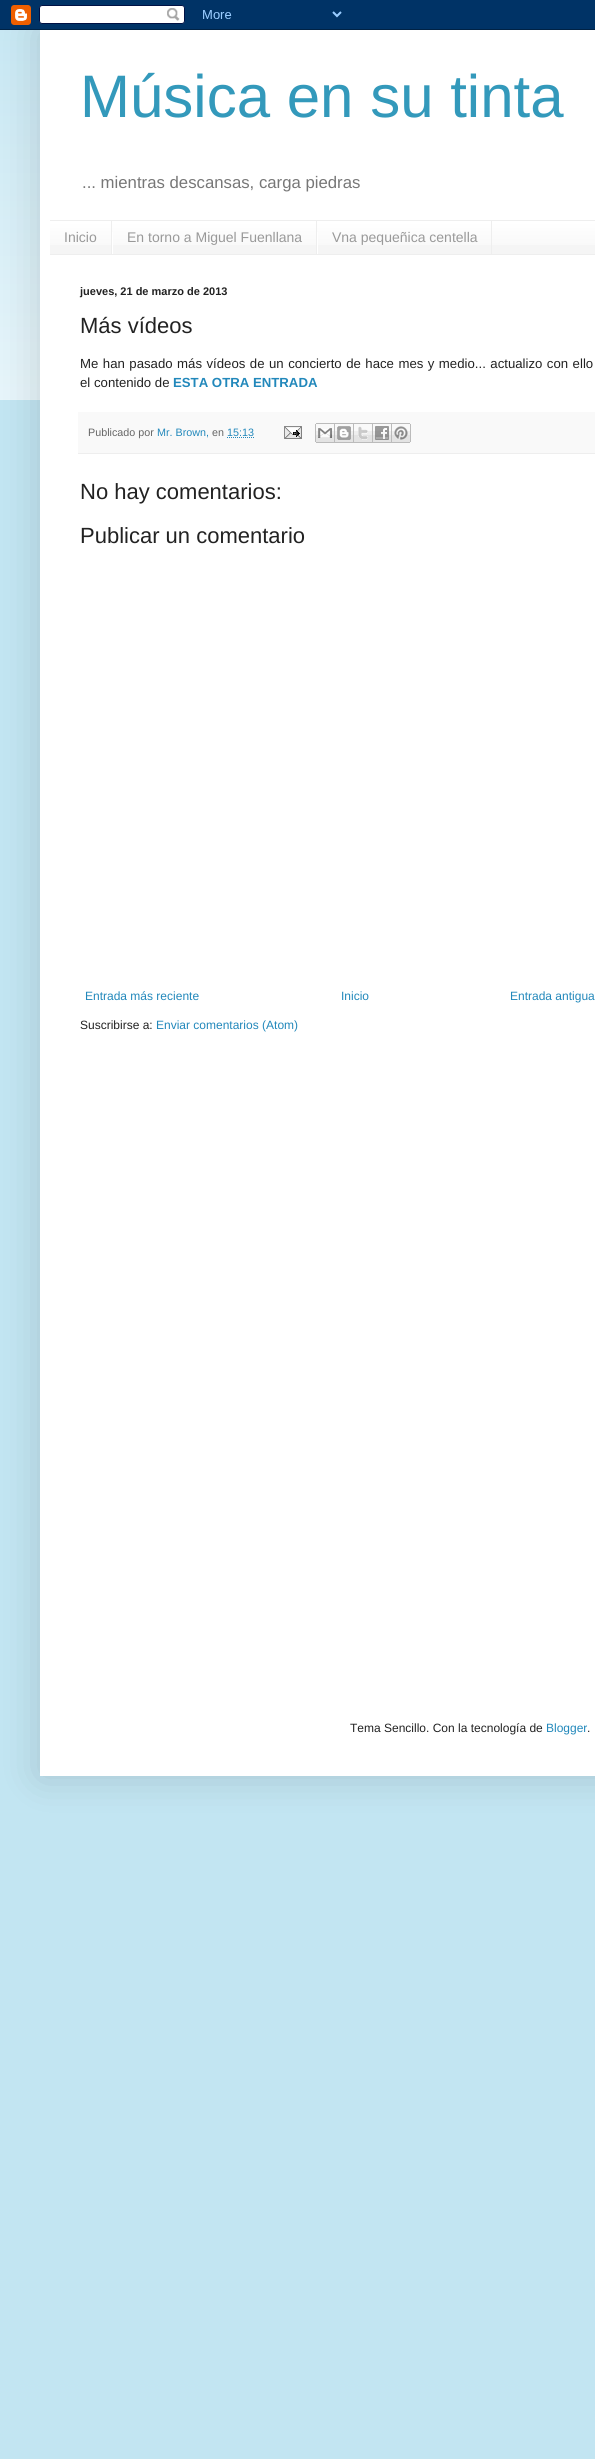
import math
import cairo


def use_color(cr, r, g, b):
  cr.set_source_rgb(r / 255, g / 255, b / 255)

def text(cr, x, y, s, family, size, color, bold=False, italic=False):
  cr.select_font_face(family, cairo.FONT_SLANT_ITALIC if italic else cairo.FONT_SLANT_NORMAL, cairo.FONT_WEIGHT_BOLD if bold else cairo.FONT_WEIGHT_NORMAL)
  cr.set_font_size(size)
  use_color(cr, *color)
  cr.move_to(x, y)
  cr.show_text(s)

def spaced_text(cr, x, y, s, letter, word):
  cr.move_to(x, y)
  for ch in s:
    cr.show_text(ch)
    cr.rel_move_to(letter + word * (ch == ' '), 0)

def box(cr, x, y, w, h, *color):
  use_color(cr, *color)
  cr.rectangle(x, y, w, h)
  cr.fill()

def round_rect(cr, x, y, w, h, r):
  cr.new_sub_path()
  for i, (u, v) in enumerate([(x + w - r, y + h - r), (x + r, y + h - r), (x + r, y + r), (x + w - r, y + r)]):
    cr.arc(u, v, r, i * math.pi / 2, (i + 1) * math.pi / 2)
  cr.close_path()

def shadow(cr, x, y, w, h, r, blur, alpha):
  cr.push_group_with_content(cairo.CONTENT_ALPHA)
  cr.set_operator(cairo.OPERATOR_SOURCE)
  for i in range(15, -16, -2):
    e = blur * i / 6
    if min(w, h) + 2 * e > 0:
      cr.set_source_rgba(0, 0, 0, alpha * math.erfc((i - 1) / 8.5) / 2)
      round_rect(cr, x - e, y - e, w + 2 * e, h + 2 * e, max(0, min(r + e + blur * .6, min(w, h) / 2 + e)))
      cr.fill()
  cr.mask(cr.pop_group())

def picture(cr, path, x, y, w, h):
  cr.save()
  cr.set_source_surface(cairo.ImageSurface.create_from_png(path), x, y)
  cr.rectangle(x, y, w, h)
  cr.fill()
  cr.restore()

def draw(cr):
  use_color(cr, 194, 229, 242)
  cr.paint()
  picture(cr, "img_02.png", 0, 30, 40, 370)
  use_color(cr, 0, 0, 0)
  shadow(cr, 40, 30, 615, 1746, 0, 20, 0.15)
  picture(cr, "img_01.png", 0, 0, 595, 30)
  box(cr, 40, 30, 555, 1746, 255, 255, 255)
  box(cr, 50, 222, 545, 32, 245, 245, 245)
  picture(cr, "img_03.png", 50, 221, 545, 24)
  box(cr, 50, 220, 545, 1, 238, 238, 238)
  box(cr, 50, 254, 545, 1, 238, 238, 238)
  box(cr, 111, 221, 1, 33, 238, 238, 238)
  box(cr, 316, 221, 1, 33, 238, 238, 238)
  box(cr, 112, 232, 1, 22, 255, 255, 255)
  box(cr, 491, 221, 1, 33, 238, 238, 238)
  box(cr, 317, 232, 1, 22, 255, 255, 255)
  box(cr, 78, 412, 517, 41, 249, 249, 249)
  box(cr, 78, 453, 517, 1, 238, 238, 238)
  cr.new_path()
  cr.move_to(227, 437.5)
  cr.line_to(254.5, 437.5)
  use_color(cr, 34, 136, 187)
  cr.set_line_width(1)
  cr.set_dash([1, 1])
  cr.stroke()
  picture(cr, "img_04.png", 284, 426, 18, 13)
  picture(cr, "img_05.png", 315, 423, 20, 20)
  picture(cr, "img_06.png", 335, 423, 19, 20)
  picture(cr, "img_07.png", 354, 423, 19, 20)
  picture(cr, "img_08.png", 373, 423, 19, 20)
  picture(cr, "img_09.png", 392, 423, 19, 20)
  text(cr, 80, 117, "Música en su tinta", "Liberation Sans", 60, (51, 153, 187))
  text(cr, 82, 188, "... mientras descansas, carga piedras", "Liberation Sans", 16.75, (119, 119, 119))
  text(cr, 64, 242, "Inicio", "Liberation Sans", 14, (153, 153, 153))
  text(cr, 127, 242, "En torno a Miguel Fuenllana", "Liberation Sans", 14, (153, 153, 153))
  text(cr, 332, 242, "Vna pequeñica centella", "Liberation Sans", 14, (153, 153, 153))
  text(cr, 80, 295, "jueves, 21 de marzo de 2013", "Liberation Sans", 11, (34, 34, 34), bold=True)
  text(cr, 80, 333, "Más vídeos", "Liberation Sans", 22, (34, 34, 34))
  cr.set_font_size(13.2)
  spaced_text(cr, 80, 368, "Me han pasado más vídeos de un concierto de hace mes y medio... actualizo con ello", 0, 0.8)
  text(cr, 80, 387, "el contenido de", "Liberation Sans", 13.2, (34, 34, 34))
  text(cr, 173, 387, "ESTA OTRA ENTRADA", "Liberation Sans", 13.2, (34, 136, 187), bold=True)
  text(cr, 88, 436, "Publicado por", "Liberation Sans", 10.75, (102, 102, 102))
  text(cr, 157, 436, "Mr. Brown,", "Liberation Sans", 10.75, (34, 136, 187))
  text(cr, 212, 436, "en", "Liberation Sans", 10.75, (102, 102, 102))
  text(cr, 227, 436, "15:13", "Liberation Sans", 10.75, (34, 136, 187))
  text(cr, 80, 499, "No hay comentarios:", "Liberation Sans", 22, (34, 34, 34))
  text(cr, 80, 543, "Publicar un comentario", "Liberation Sans", 22, (34, 34, 34))
  text(cr, 85, 1000, "Entrada más reciente", "Liberation Sans", 12, (34, 136, 187))
  text(cr, 341, 1000, "Inicio", "Liberation Sans", 12, (34, 136, 187))
  text(cr, 510, 1000, "Entrada antigua", "Liberation Sans", 12, (34, 136, 187))
  text(cr, 80, 1029, "Suscribirse a:", "Liberation Sans", 12, (34, 34, 34))
  text(cr, 156, 1029, "Enviar comentarios (Atom)", "Liberation Sans", 12, (34, 136, 187))
  text(cr, 350, 1732, "Tema Sencillo. Con la tecnología de", "Liberation Sans", 12, (34, 34, 34))
  text(cr, 546, 1732, "Blogger", "Liberation Sans", 12, (34, 136, 187))
  text(cr, 587, 1732, ".", "Liberation Sans", 12, (34, 34, 34))


surface = cairo.ImageSurface(cairo.FORMAT_RGB24, 595, 2459)
cr = cairo.Context(surface)
options = cairo.FontOptions()
options.set_hint_metrics(cairo.HINT_METRICS_OFF)
options.set_hint_style(cairo.HINT_STYLE_NONE)
cr.set_font_options(options)
cr.set_miter_limit(4)
draw(cr)
surface.write_to_png("out.png")
